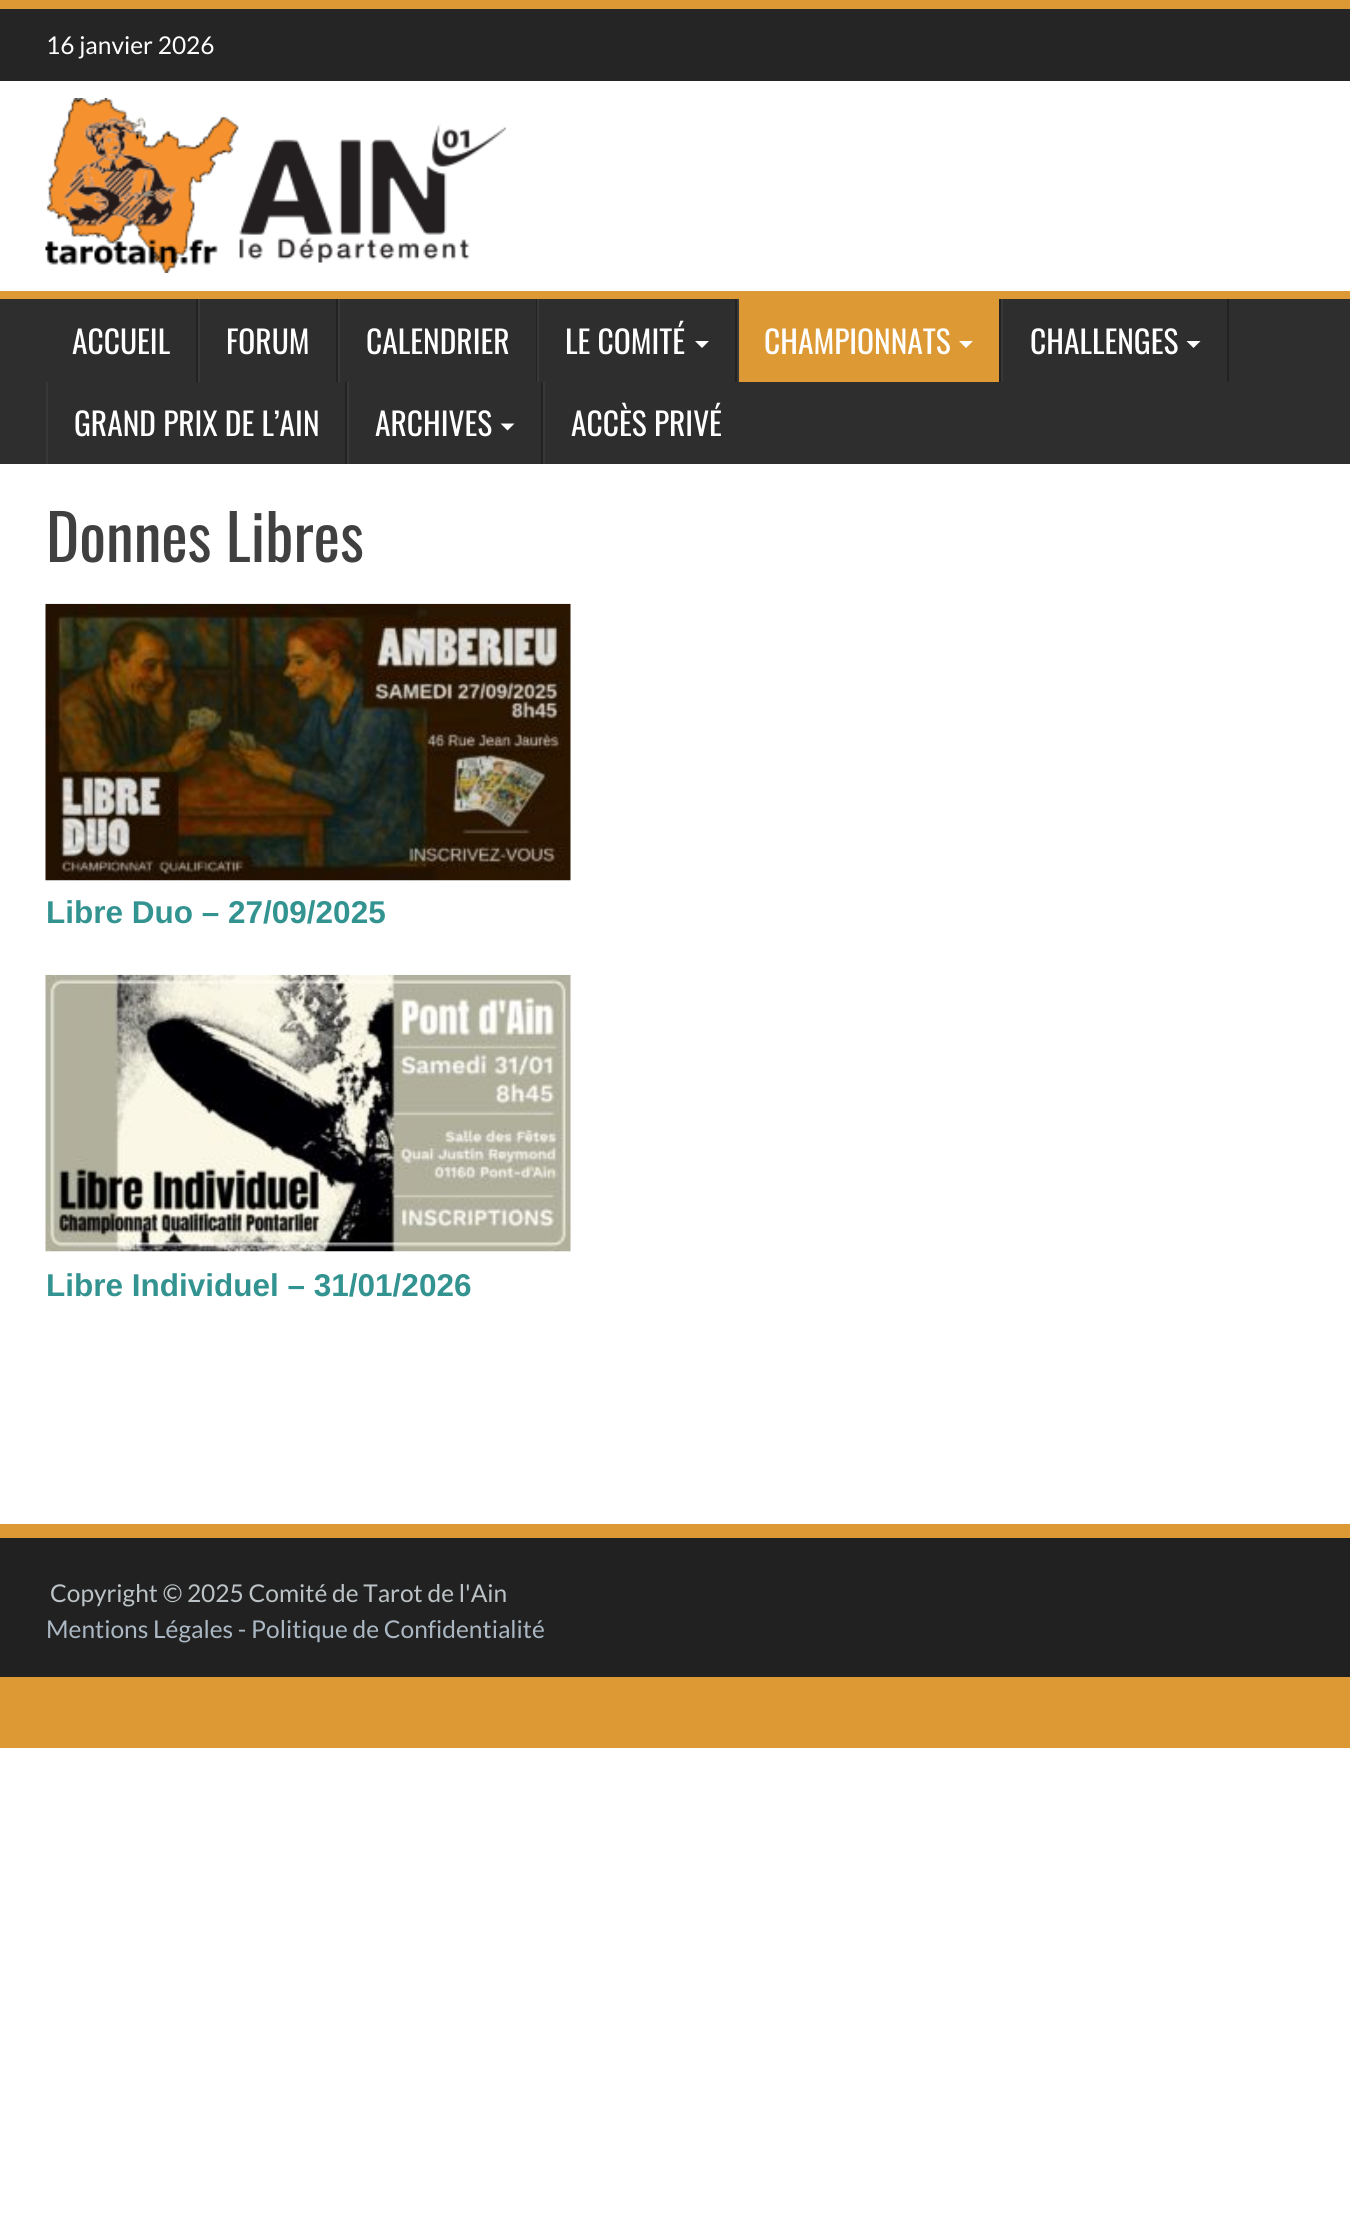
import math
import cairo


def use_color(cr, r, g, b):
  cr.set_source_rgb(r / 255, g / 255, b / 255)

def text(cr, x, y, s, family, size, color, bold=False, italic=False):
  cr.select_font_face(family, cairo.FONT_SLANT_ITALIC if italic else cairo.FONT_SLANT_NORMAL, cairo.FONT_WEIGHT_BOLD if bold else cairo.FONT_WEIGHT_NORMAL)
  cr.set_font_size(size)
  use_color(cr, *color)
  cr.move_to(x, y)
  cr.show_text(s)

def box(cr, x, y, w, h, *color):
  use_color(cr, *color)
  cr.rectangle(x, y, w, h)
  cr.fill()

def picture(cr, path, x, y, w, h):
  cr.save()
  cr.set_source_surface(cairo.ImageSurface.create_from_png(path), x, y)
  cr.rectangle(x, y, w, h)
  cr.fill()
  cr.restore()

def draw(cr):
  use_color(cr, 255, 255, 255)
  cr.paint()
  box(cr, 0, 9, 1350, 72, 37, 37, 37)
  box(cr, 0, 0, 1350, 9, 221, 153, 51)
  picture(cr, "img_01.png", 45, 98, 461, 175)
  box(cr, 0, 299, 1350, 165, 46, 46, 46)
  box(cr, 0, 291, 1350, 8, 221, 153, 51)
  box(cr, 196, 299, 2, 83, 34, 34, 34)
  box(cr, 336, 299, 2, 83, 34, 34, 34)
  box(cr, 198, 299, 2, 83, 56, 56, 56)
  box(cr, 536, 299, 1, 83, 34, 34, 34)
  box(cr, 338, 299, 2, 83, 56, 56, 56)
  box(cr, 735, 299, 2, 83, 34, 34, 34)
  box(cr, 537, 299, 2, 83, 56, 56, 56)
  use_color(cr, 255, 255, 255)
  cr.new_path()
  cr.move_to(695, 341)
  cr.line_to(709, 341)
  cr.line_to(702, 348)
  cr.close_path()
  cr.fill()
  box(cr, 999, 299, 2, 83, 34, 34, 34)
  box(cr, 739, 299, 260, 83, 221, 153, 51)
  box(cr, 737, 299, 2, 83, 56, 56, 56)
  use_color(cr, 255, 255, 255)
  cr.new_path()
  cr.move_to(959, 341)
  cr.line_to(973, 341)
  cr.line_to(966, 348)
  cr.close_path()
  cr.fill()
  box(cr, 1227, 299, 2, 83, 34, 34, 34)
  box(cr, 1001, 299, 2, 83, 56, 56, 56)
  use_color(cr, 255, 255, 255)
  cr.new_path()
  cr.move_to(1186.5, 341)
  cr.line_to(1200.5, 341)
  cr.line_to(1193.5, 348)
  cr.close_path()
  cr.fill()
  box(cr, 345, 382, 2, 82, 34, 34, 34)
  box(cr, 46, 382, 2, 82, 56, 56, 56)
  box(cr, 541, 382, 2, 82, 34, 34, 34)
  box(cr, 347, 382, 2, 82, 56, 56, 56)
  use_color(cr, 255, 255, 255)
  cr.new_path()
  cr.move_to(500.5, 423.5)
  cr.line_to(514.5, 423.5)
  cr.line_to(507.5, 430.5)
  cr.close_path()
  cr.fill()
  box(cr, 543, 382, 2, 82, 56, 56, 56)
  picture(cr, "img_02.png", 45, 603, 526, 278)
  picture(cr, "img_03.png", 45, 974, 526, 278)
  box(cr, 0, 1538, 1350, 139, 33, 33, 33)
  box(cr, 0, 1524, 1350, 14, 221, 153, 51)
  box(cr, 0, 1677, 1350, 71, 221, 153, 51)
  text(cr, 46, 54, "16 janvier 2026", "Lato", 24.5, (255, 255, 255))
  text(cr, 72, 354, "ACCUEIL", "Oswald", 31.5, (255, 255, 255))
  text(cr, 226, 354, "FORUM", "Oswald", 31.5, (255, 255, 255))
  text(cr, 366, 354, "CALENDRIER", "Oswald", 31.5, (255, 255, 255))
  text(cr, 565, 354, "LE COMITÉ", "Oswald", 31.5, (255, 255, 255))
  text(cr, 764, 354, "CHAMPIONNATS", "Oswald", 31.5, (255, 255, 255))
  text(cr, 1030, 354, "CHALLENGES", "Oswald", 31.5, (255, 255, 255))
  text(cr, 74, 436, "GRAND PRIX DE L’AIN", "Oswald", 31.5, (255, 255, 255))
  text(cr, 375, 436, "ARCHIVES", "Oswald", 31.5, (255, 255, 255))
  text(cr, 571, 436, "ACCÈS PRIVÉ", "Oswald", 31.5, (255, 255, 255))
  text(cr, 46, 562, "Donnes Libres", "Oswald", 63, (64, 64, 64))
  text(cr, 46, 923, "Libre Duo – 27/09/2025", "Liberation Sans", 31.5, (51, 147, 144), bold=True)
  text(cr, 46, 1296, "Libre Individuel – 31/01/2026", "Liberation Sans", 31.5, (51, 147, 144), bold=True)
  text(cr, 50, 1602, "Copyright © 2025 Comité de Tarot de l'Ain", "Lato", 24.5, (188, 195, 198))
  text(cr, 46, 1638, "Mentions Légales - Politique de Confidentialité", "Lato", 24.5, (171, 184, 195))


surface = cairo.ImageSurface(cairo.FORMAT_RGB24, 1350, 2239)
cr = cairo.Context(surface)
options = cairo.FontOptions()
options.set_hint_metrics(cairo.HINT_METRICS_OFF)
options.set_hint_style(cairo.HINT_STYLE_NONE)
cr.set_font_options(options)
cr.set_miter_limit(4)
draw(cr)
surface.write_to_png("out.png")
